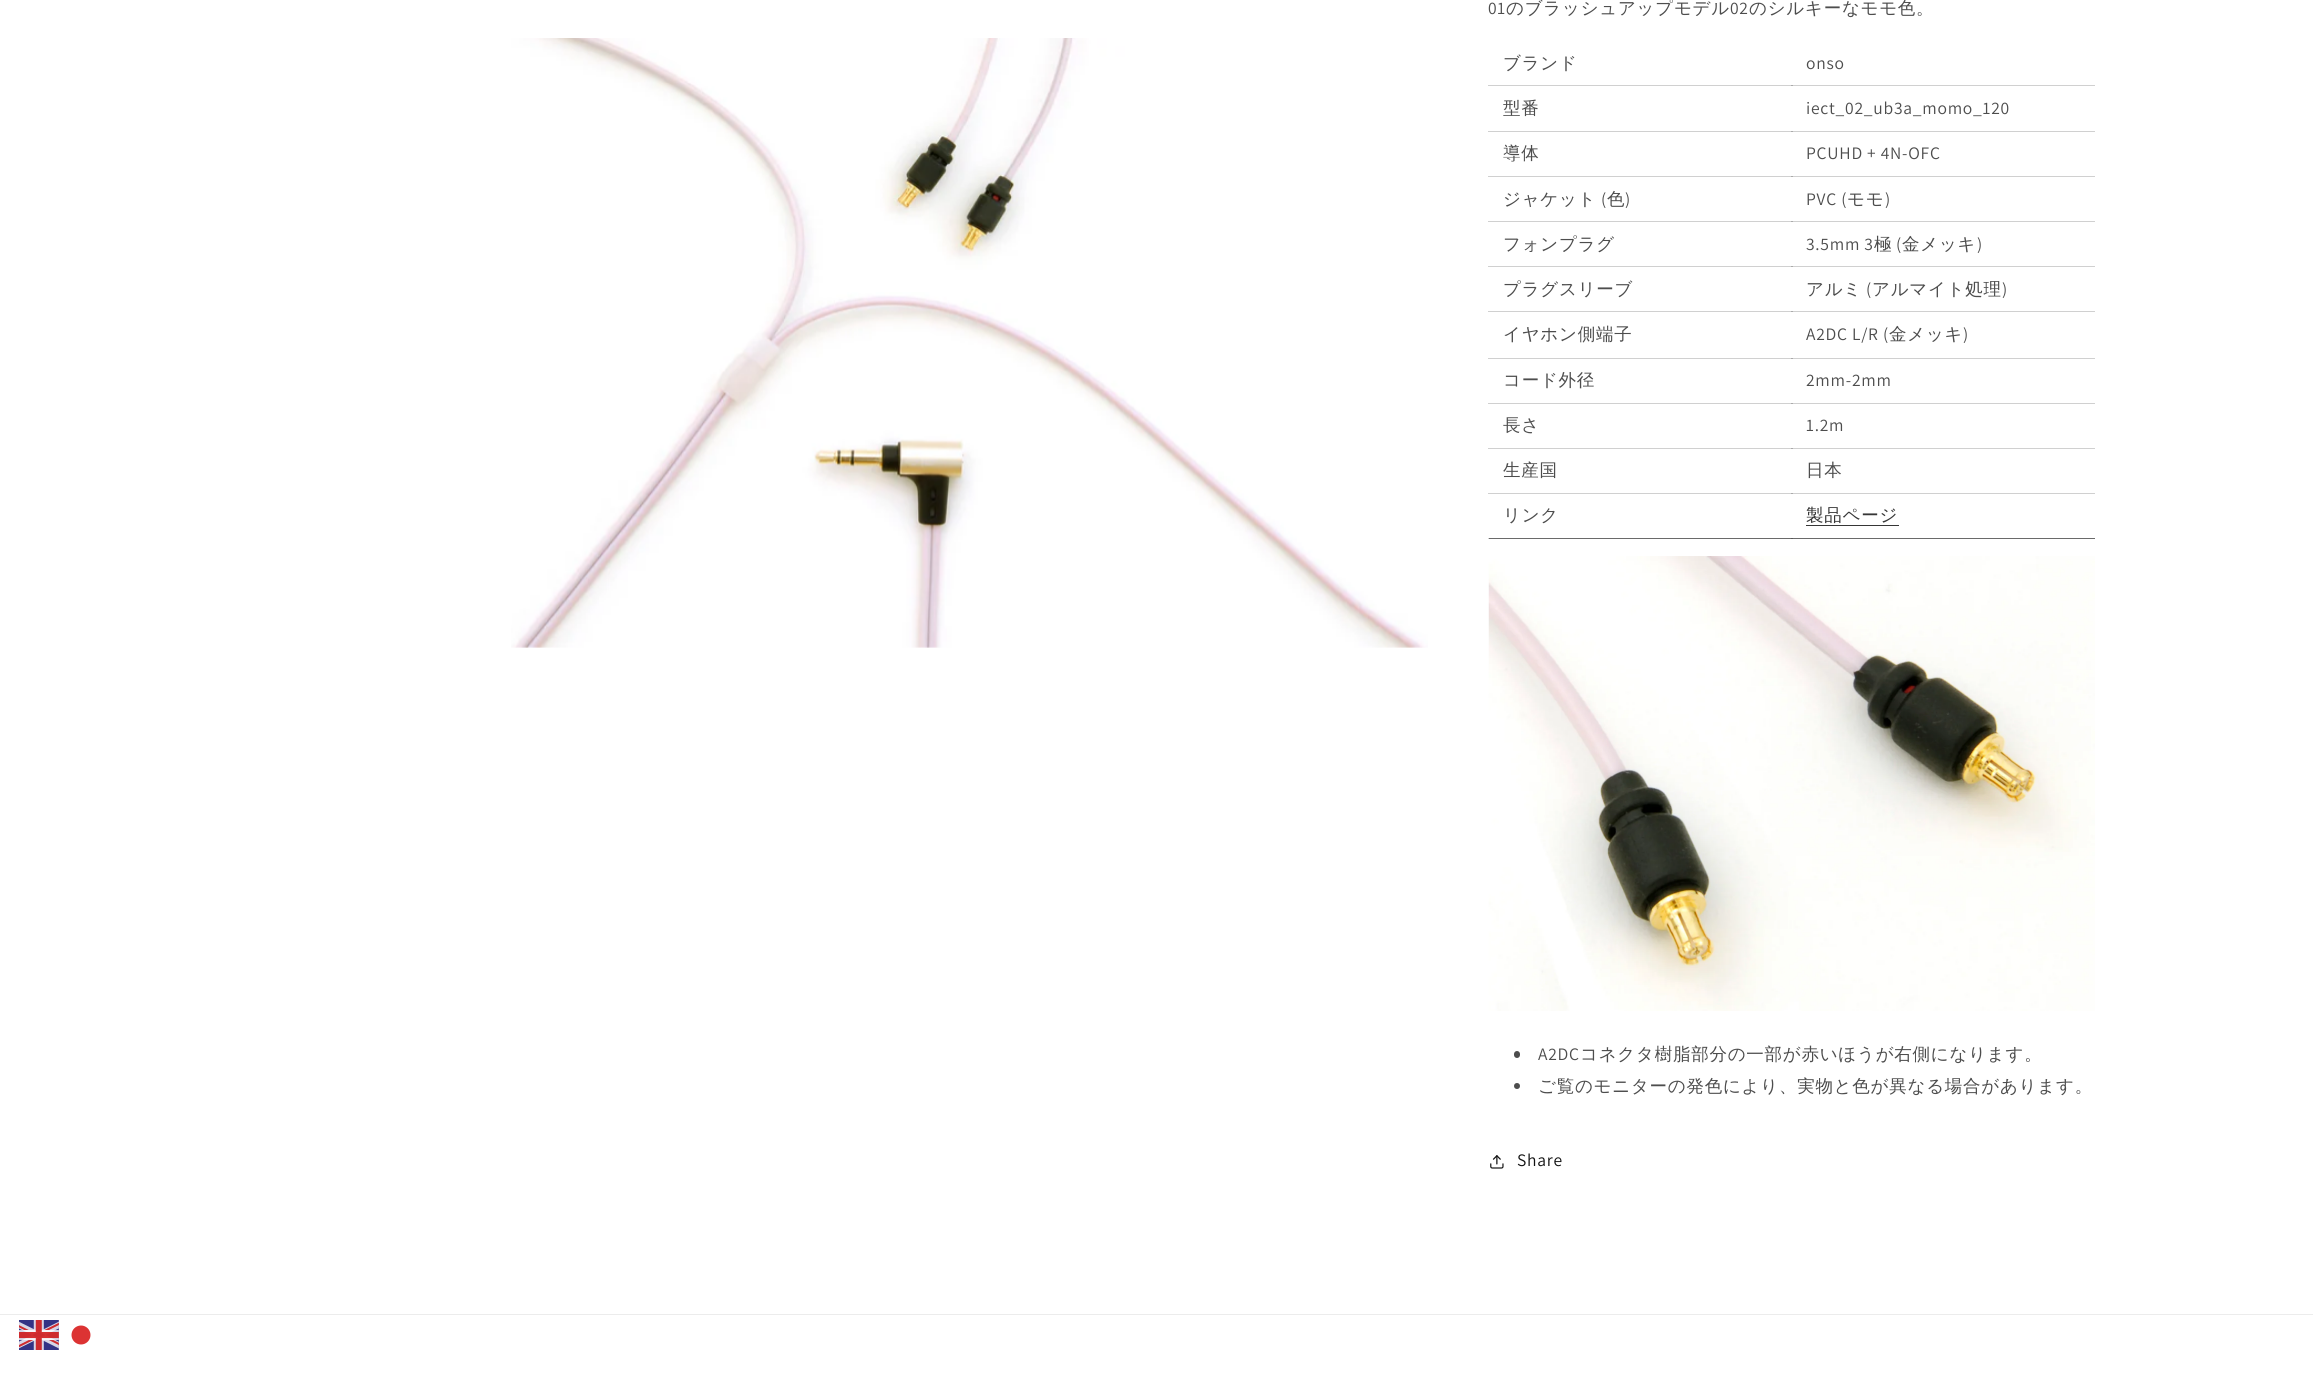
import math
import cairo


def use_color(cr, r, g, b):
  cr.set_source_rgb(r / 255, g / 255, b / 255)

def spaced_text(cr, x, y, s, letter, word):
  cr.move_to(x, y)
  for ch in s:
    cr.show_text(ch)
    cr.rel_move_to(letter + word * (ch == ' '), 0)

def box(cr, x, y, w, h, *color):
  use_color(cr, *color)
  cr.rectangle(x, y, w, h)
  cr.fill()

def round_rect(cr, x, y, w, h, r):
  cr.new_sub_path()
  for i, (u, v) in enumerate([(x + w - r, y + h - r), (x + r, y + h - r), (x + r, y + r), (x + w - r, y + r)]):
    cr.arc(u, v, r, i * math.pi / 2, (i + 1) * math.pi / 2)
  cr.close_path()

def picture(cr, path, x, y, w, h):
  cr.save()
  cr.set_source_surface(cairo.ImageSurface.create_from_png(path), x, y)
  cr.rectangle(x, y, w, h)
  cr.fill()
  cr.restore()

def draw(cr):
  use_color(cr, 255, 255, 255)
  cr.paint()
  box(cr, 1488, 85, 607, 1, 208, 208, 208)
  box(cr, 1488, 131, 607, 1, 208, 208, 208)
  box(cr, 1488, 176, 607, 1, 208, 208, 208)
  box(cr, 1488, 221, 607, 1, 208, 208, 208)
  box(cr, 1488, 266, 607, 1, 208, 208, 208)
  box(cr, 1488, 311, 607, 1, 208, 208, 208)
  box(cr, 1488, 358, 607, 1, 208, 208, 208)
  box(cr, 1488, 403, 607, 1, 208, 208, 208)
  box(cr, 1488, 448, 607, 1, 208, 208, 208)
  box(cr, 1488, 493, 607, 1, 208, 208, 208)
  box(cr, 1488, 538, 1, 1, 208, 208, 208)
  picture(cr, "img_01.png", 511, 38, 917, 610)
  box(cr, 1489, 538, 606, 1, 106, 106, 106)
  box(cr, 1791, 85, 2, 1, 170, 170, 170)
  box(cr, 1791, 131, 2, 1, 170, 170, 170)
  box(cr, 1791, 176, 2, 1, 170, 170, 170)
  box(cr, 1791, 221, 2, 1, 170, 170, 170)
  box(cr, 1791, 266, 2, 1, 170, 170, 170)
  box(cr, 1791, 311, 2, 1, 170, 170, 170)
  box(cr, 1791, 358, 2, 1, 170, 170, 170)
  box(cr, 1791, 403, 2, 1, 170, 170, 170)
  box(cr, 1791, 448, 2, 1, 170, 170, 170)
  box(cr, 1791, 493, 2, 1, 170, 170, 170)
  box(cr, 1791, 538, 2, 1, 88, 88, 88)
  box(cr, 1806, 525, 93, 1, 54, 54, 54)
  picture(cr, "img_02.png", 1488, 556, 607, 455)
  use_color(cr, 77, 77, 77)
  round_rect(cr, 1514, 1051, 6, 7, 3)
  cr.fill()
  cr.arc(1517, 1086, 3, 0, 2 * math.pi)
  cr.fill()
  picture(cr, "img_03.png", 1490, 1155, 14, 14)
  box(cr, 0, 1314, 2313, 1, 236, 236, 236)
  picture(cr, "img_04.png", 19, 1320, 40, 30)
  use_color(cr, 220, 51, 51)
  cr.arc(81, 1335, 9.5, 0, 2 * math.pi)
  cr.fill()
  cr.select_font_face("Assistant")
  cr.set_font_size(17.5)
  use_color(cr, 77, 77, 77)
  spaced_text(cr, 1488, 14, "01", 0.75, 0)
  cr.select_font_face("WenQuanYi Zen Hei Medium")
  spaced_text(cr, 1506, 14, "のブラッシュアップモデル", 0.75, 0)
  cr.select_font_face("Assistant")
  spaced_text(cr, 1730, 14, "02", 0.75, 0)
  cr.select_font_face("WenQuanYi Zen Hei Medium")
  spaced_text(cr, 1749, 14, "のシルキーなモモ色。", 0.75, 0)
  spaced_text(cr, 1503, 69, "ブランド", 0.75, 0)
  cr.select_font_face("Assistant")
  spaced_text(cr, 1806, 69, "onso", 0.75, 0)
  cr.select_font_face("WenQuanYi Zen Hei Medium")
  spaced_text(cr, 1503, 114, "型番", 0.75, 0)
  cr.select_font_face("Assistant")
  spaced_text(cr, 1806, 114, "iect_02_ub3a_momo_120", 0.75, 0)
  cr.select_font_face("WenQuanYi Zen Hei Medium")
  spaced_text(cr, 1503, 159, "導体", 0.75, 0)
  cr.select_font_face("Assistant")
  spaced_text(cr, 1806, 159, "PCUHD + 4N-OFC", 0.75, 0)
  cr.select_font_face("WenQuanYi Zen Hei Medium")
  spaced_text(cr, 1503, 205, "ジャケット", 0.75, 0)
  cr.select_font_face("Assistant")
  spaced_text(cr, 1601, 205, "(", 0.75, 0)
  cr.select_font_face("WenQuanYi Zen Hei Medium")
  spaced_text(cr, 1607, 205, "色", 0.75, 0)
  cr.select_font_face("Assistant")
  spaced_text(cr, 1625, 205, ")", 0.75, 0)
  spaced_text(cr, 1806, 205, "PVC (", 0.75, 0)
  cr.select_font_face("WenQuanYi Zen Hei Medium")
  spaced_text(cr, 1847, 205, "モモ", 0.75, 0)
  cr.select_font_face("Assistant")
  spaced_text(cr, 1885, 205, ")", 0.75, 0)
  cr.select_font_face("WenQuanYi Zen Hei Medium")
  spaced_text(cr, 1503, 250, "フォンプラグ", 0.75, 0)
  cr.select_font_face("Assistant")
  spaced_text(cr, 1806, 250, "3.5mm 3", 0.75, 0)
  cr.select_font_face("WenQuanYi Zen Hei Medium")
  spaced_text(cr, 1874, 250, "極", 0.75, 0)
  cr.select_font_face("Assistant")
  spaced_text(cr, 1896, 250, "(", 0.75, 0)
  cr.select_font_face("WenQuanYi Zen Hei Medium")
  spaced_text(cr, 1902, 250, "金メッキ", 0.75, 0)
  cr.select_font_face("Assistant")
  spaced_text(cr, 1977, 250, ")", 0.75, 0)
  cr.select_font_face("WenQuanYi Zen Hei Medium")
  spaced_text(cr, 1503, 295, "プラグスリーブ", 0.75, 0)
  spaced_text(cr, 1806, 295, "アルミ", 0.75, 0)
  cr.select_font_face("Assistant")
  spaced_text(cr, 1866, 295, "(", 0.75, 0)
  cr.select_font_face("WenQuanYi Zen Hei Medium")
  spaced_text(cr, 1872, 295, "アルマイト処理", 0.75, 0)
  cr.select_font_face("Assistant")
  spaced_text(cr, 2002, 295, ")", 0.75, 0)
  cr.select_font_face("WenQuanYi Zen Hei Medium")
  spaced_text(cr, 1503, 340, "イヤホン側端子", 0.75, 0)
  cr.select_font_face("Assistant")
  spaced_text(cr, 1806, 340, "A2DC L/R (", 0.75, 0)
  cr.select_font_face("WenQuanYi Zen Hei Medium")
  spaced_text(cr, 1889, 340, "金メッキ", 0.75, 0)
  cr.select_font_face("Assistant")
  spaced_text(cr, 1963, 340, ")", 0.75, 0)
  cr.select_font_face("WenQuanYi Zen Hei Medium")
  spaced_text(cr, 1503, 386, "コード外径", 0.75, 0)
  cr.select_font_face("Assistant")
  spaced_text(cr, 1806, 386, "2mm-2mm", 0.75, 0)
  cr.select_font_face("WenQuanYi Zen Hei Medium")
  spaced_text(cr, 1503, 431, "長さ", 0.75, 0)
  cr.select_font_face("Assistant")
  spaced_text(cr, 1806, 431, "1.2m", 0.75, 0)
  cr.select_font_face("WenQuanYi Zen Hei Medium")
  spaced_text(cr, 1503, 476, "生産国", 0.75, 0)
  spaced_text(cr, 1806, 476, "日本", 0.75, 0)
  spaced_text(cr, 1503, 521, "リンク", 0.75, 0)
  use_color(cr, 54, 54, 54)
  spaced_text(cr, 1806, 521, "製品ページ", 0.75, 0)
  cr.select_font_face("Assistant")
  use_color(cr, 77, 77, 77)
  spaced_text(cr, 1538, 1060, "A2DC", 0.75, 0)
  cr.select_font_face("WenQuanYi Zen Hei Medium")
  spaced_text(cr, 1580, 1060, "コネクタ樹脂部分の一部が赤いほうが右側になります。", 0.75, 0)
  spaced_text(cr, 1538, 1092, "ご覧のモニターの発色により、実物と色が異なる場合があります。", 0.75, 0)
  cr.select_font_face("Assistant")
  use_color(cr, 18, 18, 18)
  spaced_text(cr, 1517, 1166, "Share", 0.75, 0)


surface = cairo.ImageSurface(cairo.FORMAT_RGB24, 2313, 1373)
cr = cairo.Context(surface)
options = cairo.FontOptions()
options.set_hint_metrics(cairo.HINT_METRICS_OFF)
options.set_hint_style(cairo.HINT_STYLE_NONE)
cr.set_font_options(options)
cr.set_miter_limit(4)
draw(cr)
surface.write_to_png("out.png")
